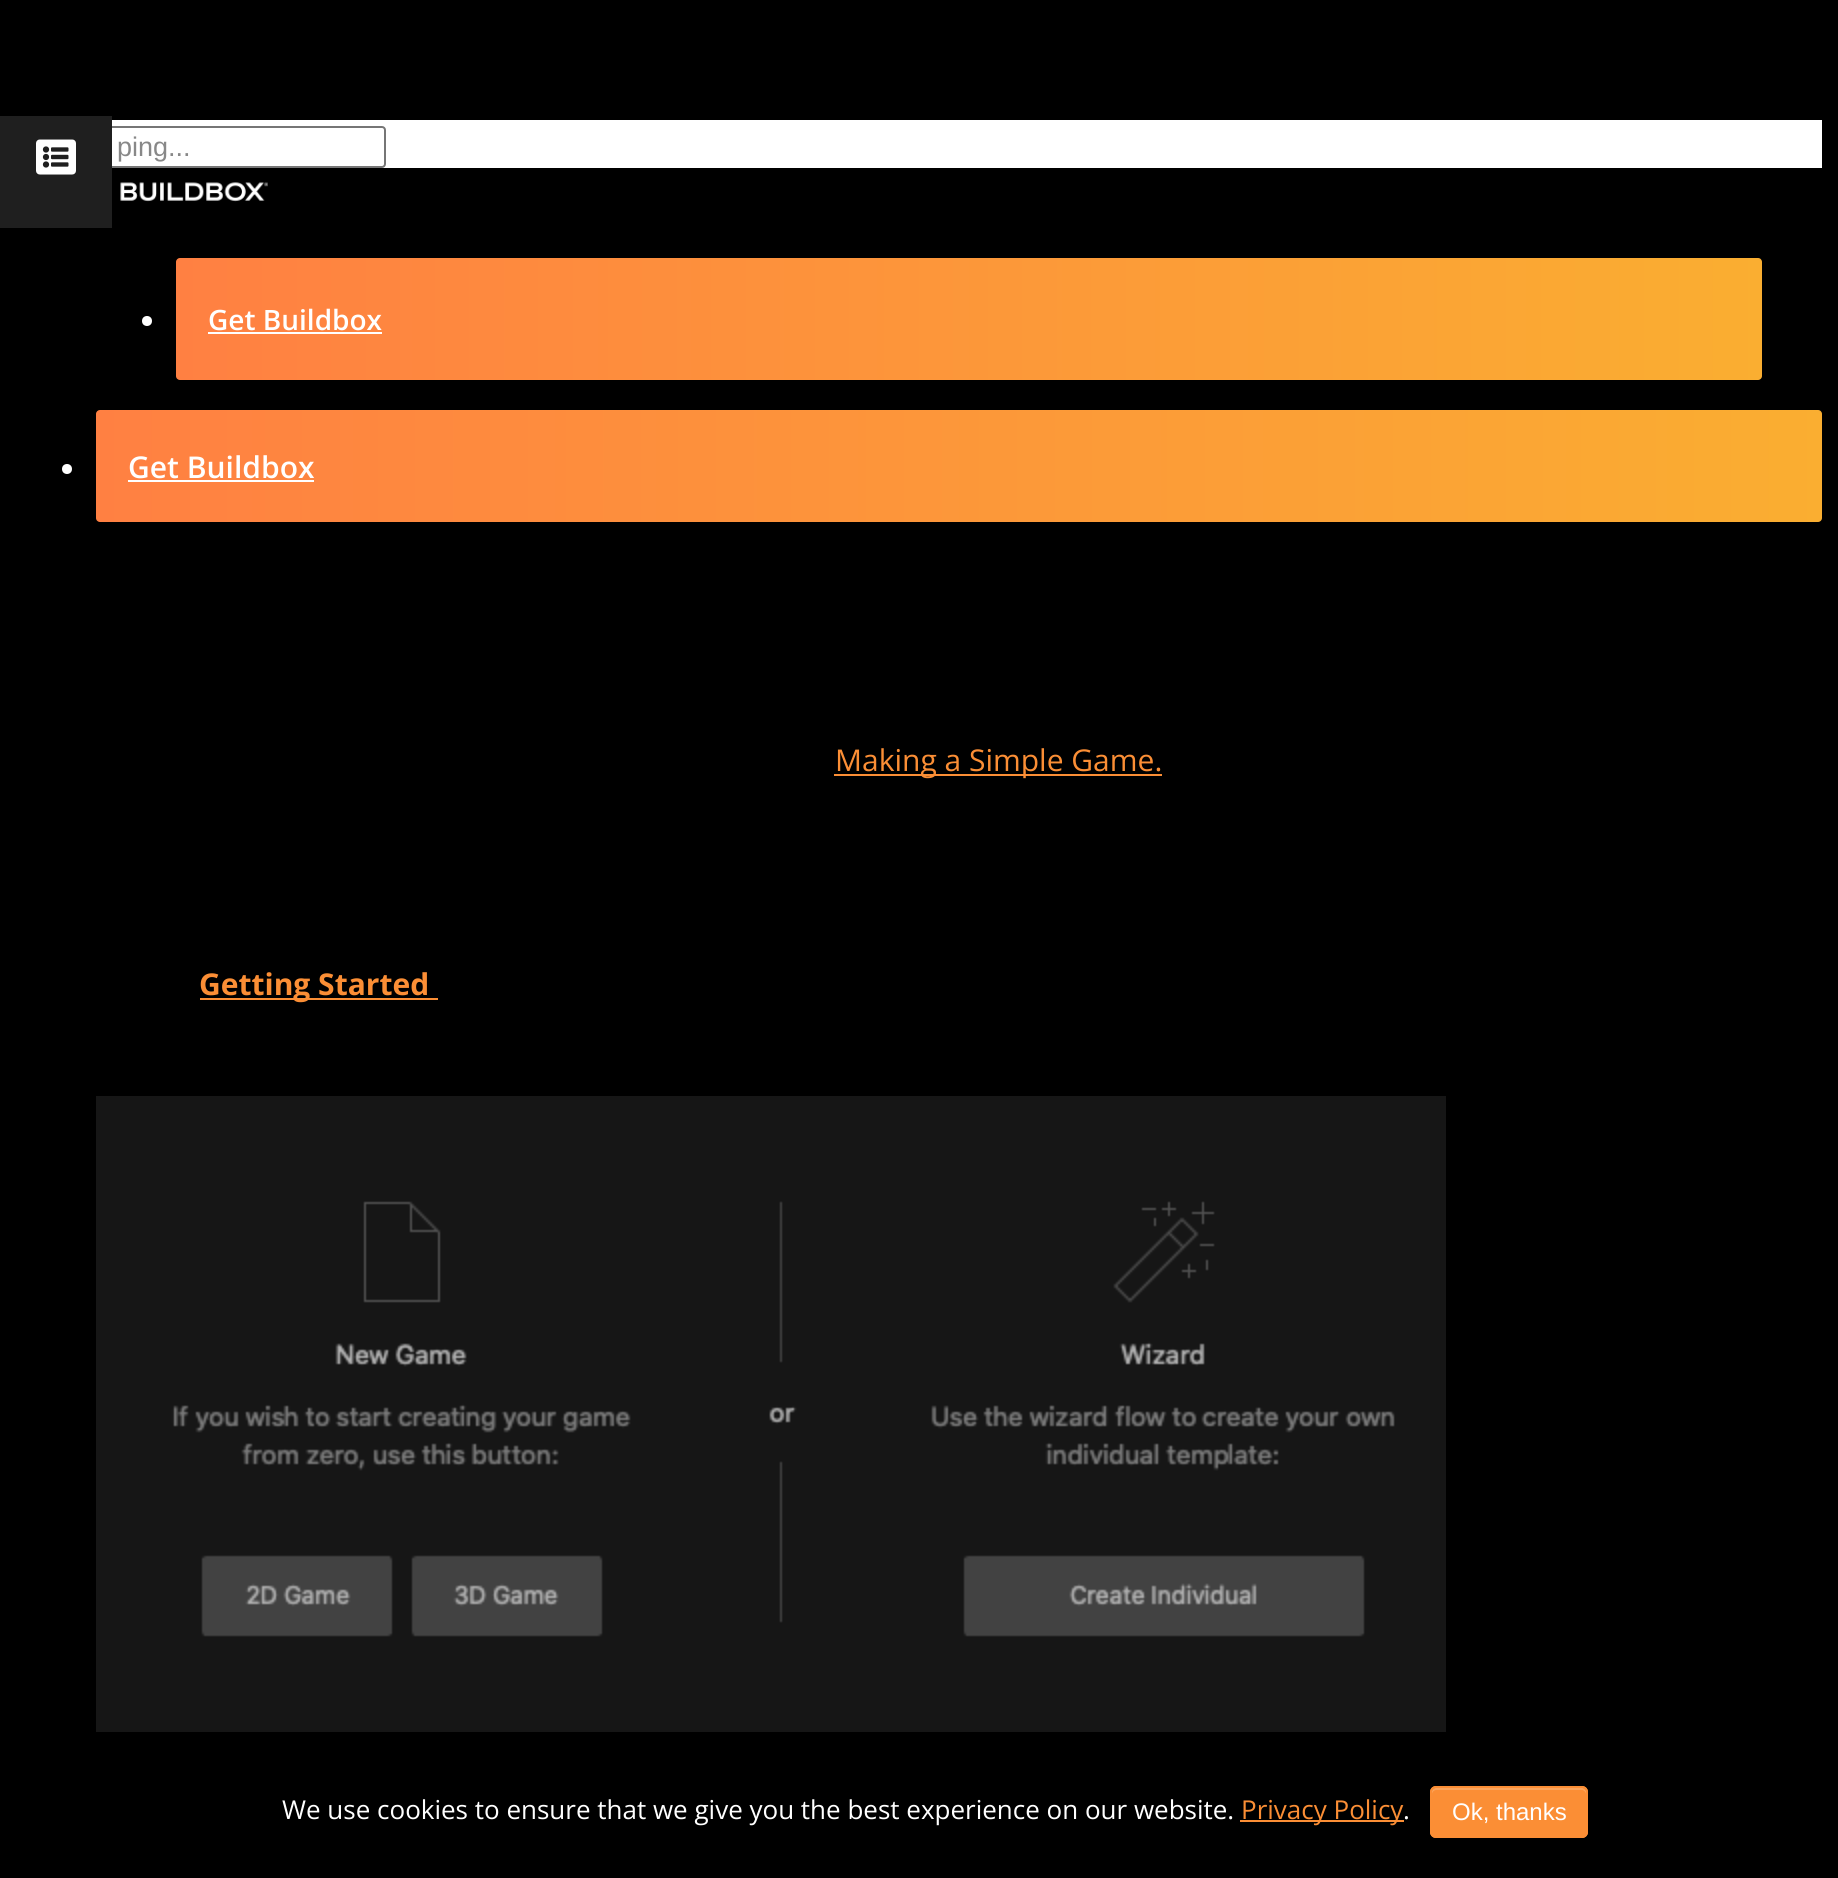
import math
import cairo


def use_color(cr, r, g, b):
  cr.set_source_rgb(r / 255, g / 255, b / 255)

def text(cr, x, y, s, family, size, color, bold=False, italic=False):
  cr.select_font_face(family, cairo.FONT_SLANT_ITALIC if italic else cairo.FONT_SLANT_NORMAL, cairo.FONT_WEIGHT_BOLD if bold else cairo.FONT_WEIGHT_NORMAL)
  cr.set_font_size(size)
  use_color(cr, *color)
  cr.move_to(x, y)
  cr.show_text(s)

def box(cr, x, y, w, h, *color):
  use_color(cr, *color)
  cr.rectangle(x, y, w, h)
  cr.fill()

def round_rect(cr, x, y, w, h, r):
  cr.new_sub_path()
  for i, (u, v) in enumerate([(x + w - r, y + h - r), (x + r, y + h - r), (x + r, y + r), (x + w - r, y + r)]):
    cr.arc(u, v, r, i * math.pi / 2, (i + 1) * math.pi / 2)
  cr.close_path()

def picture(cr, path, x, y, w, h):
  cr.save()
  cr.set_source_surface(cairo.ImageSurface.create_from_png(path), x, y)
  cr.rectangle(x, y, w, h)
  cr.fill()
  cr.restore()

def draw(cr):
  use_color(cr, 0, 0, 0)
  cr.paint()
  box(cr, 112, 120, 1710, 48, 255, 255, 255)
  round_rect(cr, 17, 127, 368, 40, 3)
  use_color(cr, 118, 118, 118)
  cr.stroke()
  picture(cr, "img_01.png", 120, 182, 148, 20)
  gradient = cairo.LinearGradient(176, 319, 1762, 319)
  gradient.add_color_stop_rgba(0, 1, 0.502, 0.259, 1)
  gradient.add_color_stop_rgba(1, 0.98, 0.682, 0.192, 1)
  cr.set_source(gradient)
  round_rect(cr, 176, 258, 1586, 122, 4)
  cr.fill()
  use_color(cr, 255, 255, 255)
  cr.arc(147, 321, 5, 0, 2 * math.pi)
  cr.fill()
  box(cr, 208, 332, 174, 2, 255, 255, 255)
  gradient = cairo.LinearGradient(96, 466, 1822, 466)
  gradient.add_color_stop_rgba(0, 1, 0.502, 0.259, 1)
  gradient.add_color_stop_rgba(1, 0.98, 0.682, 0.192, 1)
  cr.set_source(gradient)
  round_rect(cr, 96, 410, 1726, 112, 4)
  cr.fill()
  use_color(cr, 255, 255, 255)
  cr.arc(67, 469, 5, 0, 2 * math.pi)
  cr.fill()
  box(cr, 128, 480, 186, 2, 255, 255, 255)
  box(cr, 0, 116, 112, 112, 31, 31, 31)
  picture(cr, "img_02.png", 36, 139, 40, 36)
  box(cr, 834, 774, 328, 2, 251, 142, 53)
  box(cr, 200, 998, 238, 2, 251, 142, 53)
  picture(cr, "img_03.png", 96, 1096, 1350, 636)
  box(cr, 1240, 1820, 164, 2, 251, 142, 53)
  round_rect(cr, 1430, 1786, 158, 52, 6)
  cr.fill()
  use_color(cr, 252, 165, 93)
  cr.new_path()
  cr.move_to(1436, 1790)
  cr.line_to(1582, 1790)
  cr.curve_to(1584, 1790, 1586, 1792, 1586, 1794)
  cr.line_to(1586, 1792)
  cr.curve_to(1586, 1790, 1584, 1788, 1582, 1788)
  cr.line_to(1436, 1788)
  cr.curve_to(1434, 1788, 1432, 1790, 1432, 1792)
  cr.line_to(1432, 1794)
  cr.curve_to(1432, 1792, 1434, 1790, 1436, 1790)
  cr.close_path()
  cr.fill()
  round_rect(cr, 1431, 1787, 156, 50, 5)
  use_color(cr, 251, 142, 53)
  cr.stroke()
  text(cr, 117, 156, "ping...", "Liberation Sans", 27, (136, 136, 136))
  text(cr, 208, 330, "Get Buildbox", "Open Sans SemiBold", 28, (255, 255, 255))
  text(cr, 128, 478, "Get Buildbox", "Open Sans SemiBold", 30, (255, 255, 255))
  text(cr, 835, 771, "Making a Simple Game.", "Open Sans", 30, (251, 142, 53))
  text(cr, 199, 995, "Getting Started", "Open Sans", 30, (251, 142, 53), bold=True)
  text(cr, 282, 1819, "We use cookies to ensure that we give you the best experience on our website.", "Open Sans", 26, (255, 255, 255))
  text(cr, 1241, 1819, "Privacy Policy", "Open Sans", 26, (251, 142, 53))
  text(cr, 1403, 1819, ".", "Open Sans", 26, (255, 255, 255))
  text(cr, 1452, 1820, "Ok, thanks", "Liberation Sans", 24, (255, 255, 255))


surface = cairo.ImageSurface(cairo.FORMAT_RGB24, 1838, 1878)
cr = cairo.Context(surface)
options = cairo.FontOptions()
options.set_hint_metrics(cairo.HINT_METRICS_OFF)
options.set_hint_style(cairo.HINT_STYLE_NONE)
cr.set_font_options(options)
cr.set_miter_limit(4)
draw(cr)
surface.write_to_png("out.png")
